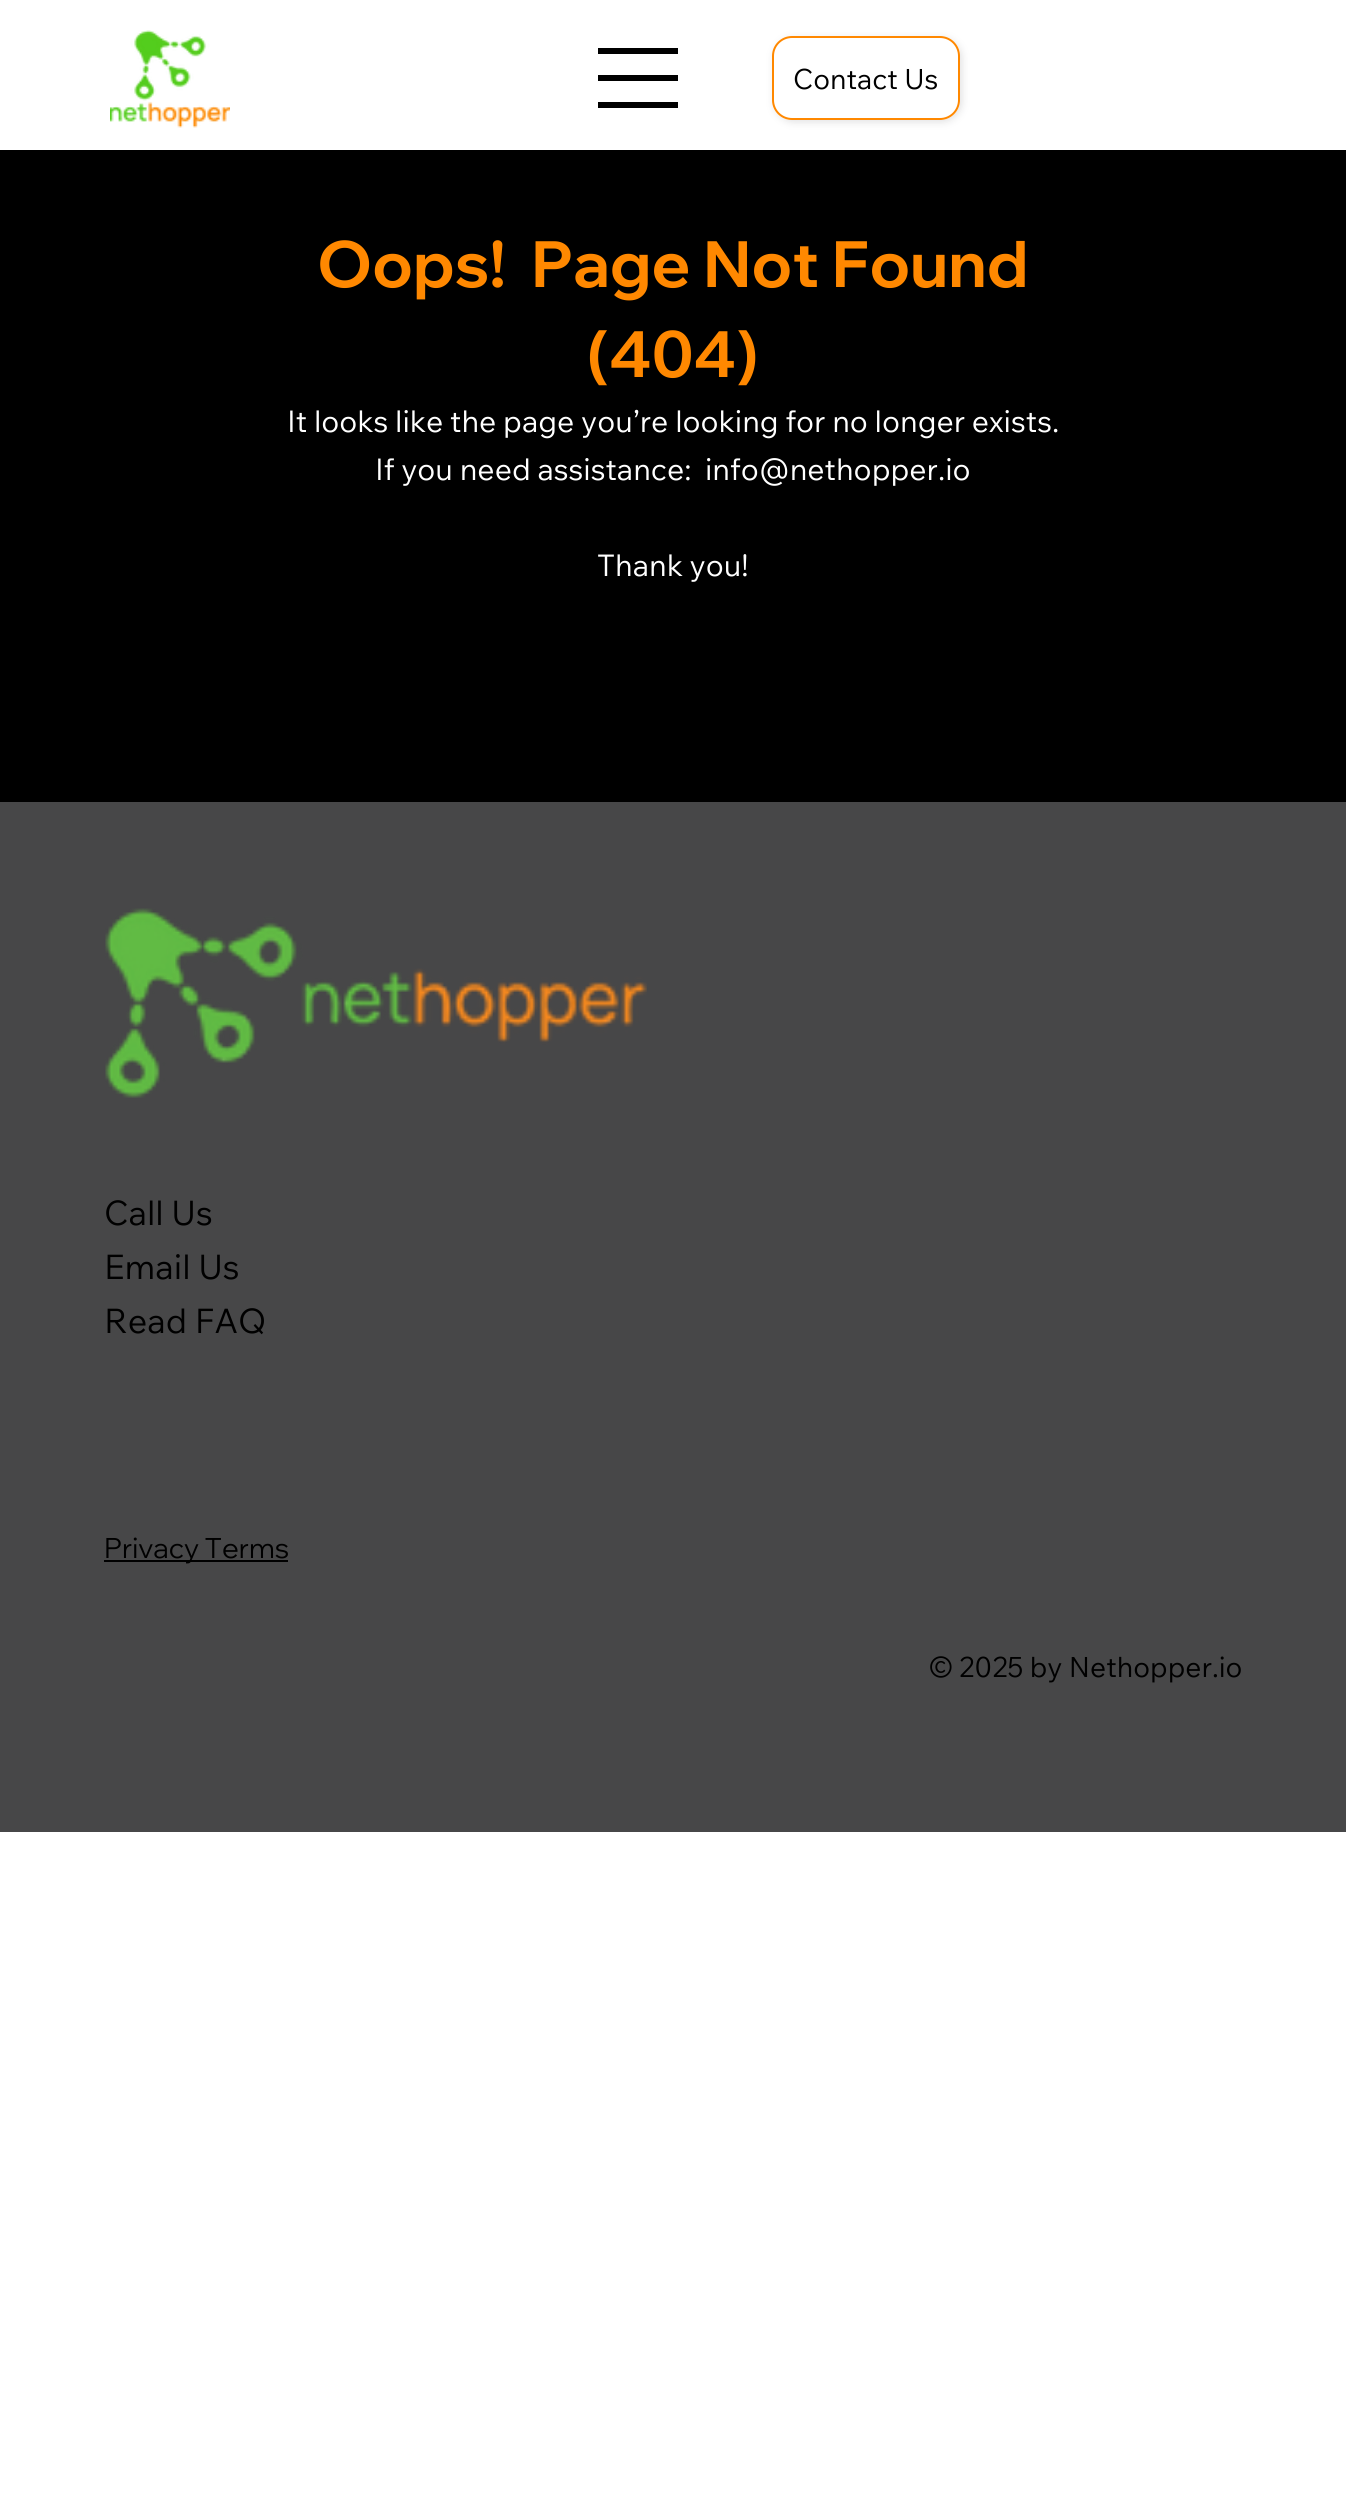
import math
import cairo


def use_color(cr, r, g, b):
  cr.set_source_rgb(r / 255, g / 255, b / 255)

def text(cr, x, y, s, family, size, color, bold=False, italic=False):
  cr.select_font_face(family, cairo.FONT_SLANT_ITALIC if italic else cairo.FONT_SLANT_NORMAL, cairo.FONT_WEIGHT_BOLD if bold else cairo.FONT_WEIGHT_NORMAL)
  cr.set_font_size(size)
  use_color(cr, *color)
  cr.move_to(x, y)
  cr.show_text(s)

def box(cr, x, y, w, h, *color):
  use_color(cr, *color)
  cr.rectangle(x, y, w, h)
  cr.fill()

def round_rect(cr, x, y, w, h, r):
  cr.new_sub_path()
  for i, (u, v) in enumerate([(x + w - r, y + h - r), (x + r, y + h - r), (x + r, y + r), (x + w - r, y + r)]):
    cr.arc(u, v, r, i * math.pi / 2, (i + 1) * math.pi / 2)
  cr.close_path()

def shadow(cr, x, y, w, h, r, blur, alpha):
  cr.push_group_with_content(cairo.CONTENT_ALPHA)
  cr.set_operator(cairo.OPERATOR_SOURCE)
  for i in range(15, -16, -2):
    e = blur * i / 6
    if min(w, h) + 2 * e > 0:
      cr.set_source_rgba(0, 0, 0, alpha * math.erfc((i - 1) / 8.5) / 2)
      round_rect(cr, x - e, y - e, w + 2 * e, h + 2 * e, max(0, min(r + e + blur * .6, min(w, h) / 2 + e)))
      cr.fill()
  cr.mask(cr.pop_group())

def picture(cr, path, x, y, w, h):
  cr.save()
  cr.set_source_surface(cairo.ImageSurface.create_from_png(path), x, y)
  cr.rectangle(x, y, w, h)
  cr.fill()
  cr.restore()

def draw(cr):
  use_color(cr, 255, 255, 255)
  cr.paint()
  picture(cr, "img_01.png", 110, 30, 120, 98)
  use_color(cr, 0, 0, 0)
  cr.set_fill_rule(cairo.FILL_RULE_EVEN_ODD)
  cr.new_path()
  cr.move_to(678, 54)
  cr.line_to(598, 54)
  cr.line_to(598, 48)
  cr.line_to(678, 48)
  cr.close_path()
  cr.move_to(678, 81)
  cr.line_to(598, 81)
  cr.line_to(598, 75)
  cr.line_to(678, 75)
  cr.close_path()
  cr.move_to(678, 108)
  cr.line_to(598, 108)
  cr.line_to(598, 102)
  cr.line_to(678, 102)
  cr.close_path()
  cr.fill()
  cr.save()
  cr.new_path()
  cr.move_to(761, 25)
  cr.line_to(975, 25)
  cr.line_to(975, 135)
  cr.line_to(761, 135)
  cr.close_path()
  cr.move_to(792, 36)
  cr.line_to(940, 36)
  cr.curve_to(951, 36, 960, 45, 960, 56)
  cr.line_to(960, 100)
  cr.curve_to(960, 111, 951, 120, 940, 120)
  cr.line_to(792, 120)
  cr.curve_to(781, 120, 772, 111, 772, 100)
  cr.line_to(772, 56)
  cr.curve_to(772, 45, 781, 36, 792, 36)
  cr.close_path()
  cr.clip()
  use_color(cr, 205, 205, 206)
  shadow(cr, 774, 38, 188, 84, 20, 4, 0.6)
  cr.restore()
  round_rect(cr, 773, 37, 186, 82, 19)
  use_color(cr, 255, 136, 0)
  cr.stroke()
  box(cr, 0, 150, 1346, 652, 0, 0, 0)
  box(cr, 0, 802, 1346, 1030, 71, 71, 72)
  picture(cr, "img_02.png", 105, 908, 542, 190)
  box(cr, 104, 1560, 184, 2, 0, 0, 0)
  text(cr, 793, 89, "Contact Us", "Wix Madefor Text", 28, (0, 0, 0))
  text(cr, 317, 287, "Oops!  Page Not Found", "Wix Madefor Display", 64, (255, 136, 0), bold=True)
  text(cr, 587, 377, "(404)", "Wix Madefor Display", 64, (255, 136, 0), bold=True)
  text(cr, 287, 432, "It looks like the page you’re looking for no longer exists.", "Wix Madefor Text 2", 30, (255, 255, 255))
  text(cr, 375, 480, "If you need assistance:  info@nethopper.io", "Wix Madefor Text 2", 30, (255, 255, 255))
  text(cr, 597, 576, "Thank you!", "Wix Madefor Text 2", 30, (255, 255, 255))
  text(cr, 104, 1225, "Call Us", "Wix Madefor Text 2", 34, (0, 0, 0))
  text(cr, 104, 1279, "Email Us", "Wix Madefor Text 2", 34, (0, 0, 0))
  text(cr, 104, 1333, "Read FAQ", "Wix Madefor Text 2", 34, (0, 0, 0))
  text(cr, 104, 1558, "Privacy Terms", "Wix Madefor Display", 28, (0, 0, 0))
  text(cr, 929, 1677, "© 2025 by Nethopper.io", "Wix Madefor Text 2", 28, (0, 0, 0))


surface = cairo.ImageSurface(cairo.FORMAT_RGB24, 1346, 2513)
cr = cairo.Context(surface)
options = cairo.FontOptions()
options.set_hint_metrics(cairo.HINT_METRICS_OFF)
options.set_hint_style(cairo.HINT_STYLE_NONE)
cr.set_font_options(options)
cr.set_miter_limit(4)
draw(cr)
surface.write_to_png("out.png")
